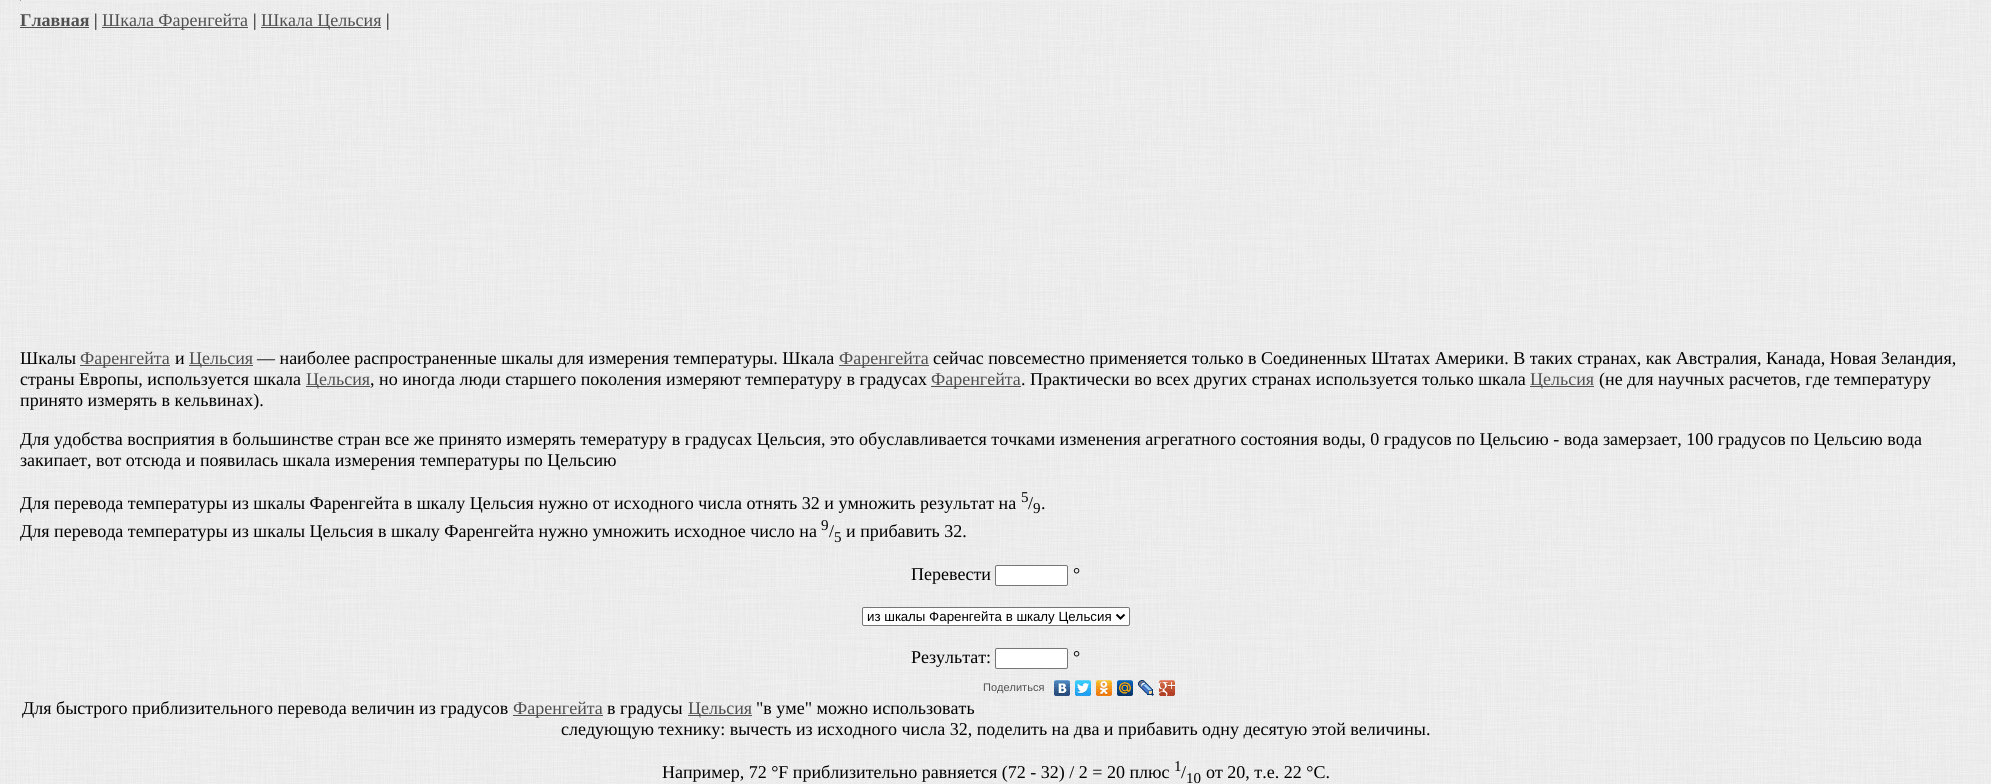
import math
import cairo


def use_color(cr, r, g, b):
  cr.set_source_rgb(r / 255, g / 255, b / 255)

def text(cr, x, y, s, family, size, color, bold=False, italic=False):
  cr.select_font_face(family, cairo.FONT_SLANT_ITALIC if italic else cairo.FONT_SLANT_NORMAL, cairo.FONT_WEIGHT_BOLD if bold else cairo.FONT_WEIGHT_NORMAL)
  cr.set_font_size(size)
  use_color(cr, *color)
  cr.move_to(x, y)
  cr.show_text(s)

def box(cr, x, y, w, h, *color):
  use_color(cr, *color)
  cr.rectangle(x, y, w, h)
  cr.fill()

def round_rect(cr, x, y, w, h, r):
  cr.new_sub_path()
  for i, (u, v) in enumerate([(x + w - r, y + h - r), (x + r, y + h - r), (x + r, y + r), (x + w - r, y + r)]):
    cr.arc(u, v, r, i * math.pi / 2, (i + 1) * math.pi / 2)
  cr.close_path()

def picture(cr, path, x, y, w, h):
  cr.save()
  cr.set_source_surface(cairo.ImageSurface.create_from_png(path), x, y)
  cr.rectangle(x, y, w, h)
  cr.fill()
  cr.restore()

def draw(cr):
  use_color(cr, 255, 255, 255)
  cr.paint()
  picture(cr, "img_01.png", 0, 0, 1991, 784)
  box(cr, 20, 0, 1951, 1, 238, 238, 238)
  box(cr, 20, 0, 1, 1, 159, 159, 159)
  box(cr, 20, 27, 69, 1, 80, 80, 80)
  box(cr, 102, 27, 146, 1, 80, 80, 80)
  box(cr, 261, 27, 120, 1, 80, 80, 80)
  box(cr, 80, 365, 90, 1, 80, 80, 80)
  box(cr, 189, 365, 64, 1, 80, 80, 80)
  box(cr, 839, 365, 90, 1, 80, 80, 80)
  box(cr, 306, 386, 64, 1, 80, 80, 80)
  box(cr, 931, 386, 90, 1, 80, 80, 80)
  box(cr, 1530, 386, 64, 1, 80, 80, 80)
  use_color(cr, 255, 255, 255)
  round_rect(cr, 995.5, 565.5, 72, 20, 1.5)
  cr.fill_preserve()
  use_color(cr, 118, 118, 118)
  cr.set_line_width(1)
  cr.stroke()
  use_color(cr, 255, 255, 255)
  round_rect(cr, 862.5, 607.5, 267, 18, 1.5)
  cr.fill_preserve()
  use_color(cr, 118, 118, 118)
  cr.stroke()
  cr.new_path()
  cr.move_to(1116.5, 614.5)
  cr.line_to(1120.5, 618.5)
  cr.line_to(1124.5, 614.5)
  use_color(cr, 0, 0, 0)
  cr.set_line_width(2)
  cr.stroke()
  use_color(cr, 255, 255, 255)
  round_rect(cr, 995.5, 648.5, 72, 20, 1.5)
  cr.fill_preserve()
  use_color(cr, 118, 118, 118)
  cr.set_line_width(1)
  cr.stroke()
  picture(cr, "img_02.png", 1054, 680, 16, 16)
  picture(cr, "img_03.png", 1075, 680, 16, 16)
  picture(cr, "img_04.png", 1096, 680, 16, 16)
  picture(cr, "img_05.png", 1117, 680, 16, 16)
  picture(cr, "img_06.png", 1138, 680, 16, 16)
  picture(cr, "img_07.png", 1159, 680, 16, 16)
  box(cr, 513, 715, 90, 1, 80, 80, 80)
  box(cr, 688, 715, 64, 1, 80, 80, 80)
  text(cr, 20, 26, "Главная", "Liberation Serif", 18, (80, 80, 80), bold=True)
  text(cr, 94, 26, "|", "Liberation Serif", 18, (0, 0, 0))
  text(cr, 102, 26, "Шкала Фаренгейта", "Liberation Serif", 18, (80, 80, 80))
  text(cr, 253, 26, "|", "Liberation Serif", 18, (0, 0, 0))
  text(cr, 261, 26, "Шкала Цельсия", "Liberation Serif", 18, (80, 80, 80))
  text(cr, 386, 26, "|", "Liberation Serif", 18, (0, 0, 0))
  text(cr, 20, 364, "Шкалы", "Liberation Serif", 18, (0, 0, 0))
  text(cr, 80, 364, "Фаренгейта", "Liberation Serif", 18, (80, 80, 80))
  text(cr, 175, 364, "и", "Liberation Serif", 18, (0, 0, 0))
  text(cr, 189, 364, "Цельсия", "Liberation Serif", 18, (80, 80, 80))
  text(cr, 257, 364, "— наиболее распространенные шкалы для измерения температуры. Шкала", "Liberation Serif", 18, (0, 0, 0))
  text(cr, 839, 364, "Фаренгейта", "Liberation Serif", 18, (80, 80, 80))
  text(cr, 933, 364, "сейчас повсеместно применяется только в Соединенных Штатах Америки. В таких странах, как Австралия, Канада, Новая Зеландия,", "Liberation Serif", 18, (0, 0, 0))
  text(cr, 20, 385, "страны Европы, используется шкала", "Liberation Serif", 18, (0, 0, 0))
  text(cr, 306, 385, "Цельсия", "Liberation Serif", 18, (80, 80, 80))
  text(cr, 370, 385, ", но иногда люди старшего поколения измеряют температуру в градусах", "Liberation Serif", 18, (0, 0, 0))
  text(cr, 931, 385, "Фаренгейта", "Liberation Serif", 18, (80, 80, 80))
  text(cr, 1021, 385, ". Практически во всех других странах используется только шкала", "Liberation Serif", 18, (0, 0, 0))
  text(cr, 1530, 385, "Цельсия", "Liberation Serif", 18, (80, 80, 80))
  text(cr, 1599, 385, "(не для научных расчетов, где температуру", "Liberation Serif", 18, (0, 0, 0))
  text(cr, 20, 406, "принято измерять в кельвинах).", "Liberation Serif", 18, (0, 0, 0))
  text(cr, 20, 445, "Для удобства восприятия в большинстве стран все же принято измерять темературу в градусах Цельсия, это обуславливается точками изменения агрегатного состояния воды, 0 градусов по Цельсию - вода замерзает, 100 градусов по Цельсию вода", "Liberation Serif", 18, (0, 0, 0))
  text(cr, 20, 466, "закипает, вот отсюда и появилась шкала измерения температуры по Цельсию", "Liberation Serif", 18, (0, 0, 0))
  text(cr, 20, 509, "Для перевода температуры из шкалы Фаренгейта в шкалу Цельсия нужно от исходного числа отнять 32 и умножить результат на", "Liberation Serif", 18, (0, 0, 0))
  text(cr, 1021, 502, "5", "Liberation Serif", 15, (0, 0, 0))
  text(cr, 1028, 509, "/", "Liberation Serif", 18, (0, 0, 0))
  text(cr, 1033, 513, "9", "Liberation Serif", 15, (0, 0, 0))
  text(cr, 1041, 509, ".", "Liberation Serif", 18, (0, 0, 0))
  text(cr, 20, 537, "Для перевода температуры из шкалы Цельсия в шкалу Фаренгейта нужно умножить исходное число на", "Liberation Serif", 18, (0, 0, 0))
  text(cr, 821, 530, "9", "Liberation Serif", 15, (0, 0, 0))
  text(cr, 829, 537, "/", "Liberation Serif", 18, (0, 0, 0))
  text(cr, 834, 542, "5", "Liberation Serif", 15, (0, 0, 0))
  text(cr, 846, 537, "и прибавить 32.", "Liberation Serif", 18, (0, 0, 0))
  text(cr, 911, 580, "Перевести", "Liberation Serif", 18, (0, 0, 0))
  text(cr, 1073, 580, "°", "Liberation Serif", 18, (0, 0, 0))
  text(cr, 867, 621, "из шкалы Фаренгейта в шкалу Цельсия", "Liberation Sans", 13.3, (0, 0, 0))
  text(cr, 911, 663, "Результат:", "Liberation Serif", 18, (0, 0, 0))
  text(cr, 1073, 663, "°", "Liberation Serif", 18, (0, 0, 0))
  text(cr, 983, 691, "Поделиться", "Liberation Sans", 11, (80, 80, 80))
  text(cr, 22, 714, "Для быстрого приблизительного перевода величин из градусов", "Liberation Serif", 18, (0, 0, 0))
  text(cr, 513, 714, "Фаренгейта", "Liberation Serif", 18, (80, 80, 80))
  text(cr, 607, 714, "в градусы", "Liberation Serif", 18, (0, 0, 0))
  text(cr, 688, 714, "Цельсия", "Liberation Serif", 18, (80, 80, 80))
  text(cr, 756, 714, "\"в уме\" можно использовать", "Liberation Serif", 18, (0, 0, 0))
  text(cr, 561, 735, "следующую технику: вычесть из исходного числа 32, поделить на два и прибавить одну десятую этой величины.", "Liberation Serif", 18, (0, 0, 0))
  text(cr, 662, 778, "Например, 72 °F приблизительно равняется (72 - 32) / 2 = 20 плюс", "Liberation Serif", 18, (0, 0, 0))
  text(cr, 1174, 771, "1", "Liberation Serif", 15, (0, 0, 0))
  text(cr, 1181, 778, "/", "Liberation Serif", 18, (0, 0, 0))
  text(cr, 1186, 783, "10", "Liberation Serif", 15, (0, 0, 0))
  text(cr, 1206, 778, "от 20, т.е. 22 °C.", "Liberation Serif", 18, (0, 0, 0))


surface = cairo.ImageSurface(cairo.FORMAT_RGB24, 1991, 784)
cr = cairo.Context(surface)
options = cairo.FontOptions()
options.set_hint_metrics(cairo.HINT_METRICS_OFF)
options.set_hint_style(cairo.HINT_STYLE_NONE)
cr.set_font_options(options)
cr.set_miter_limit(4)
draw(cr)
surface.write_to_png("out.png")
